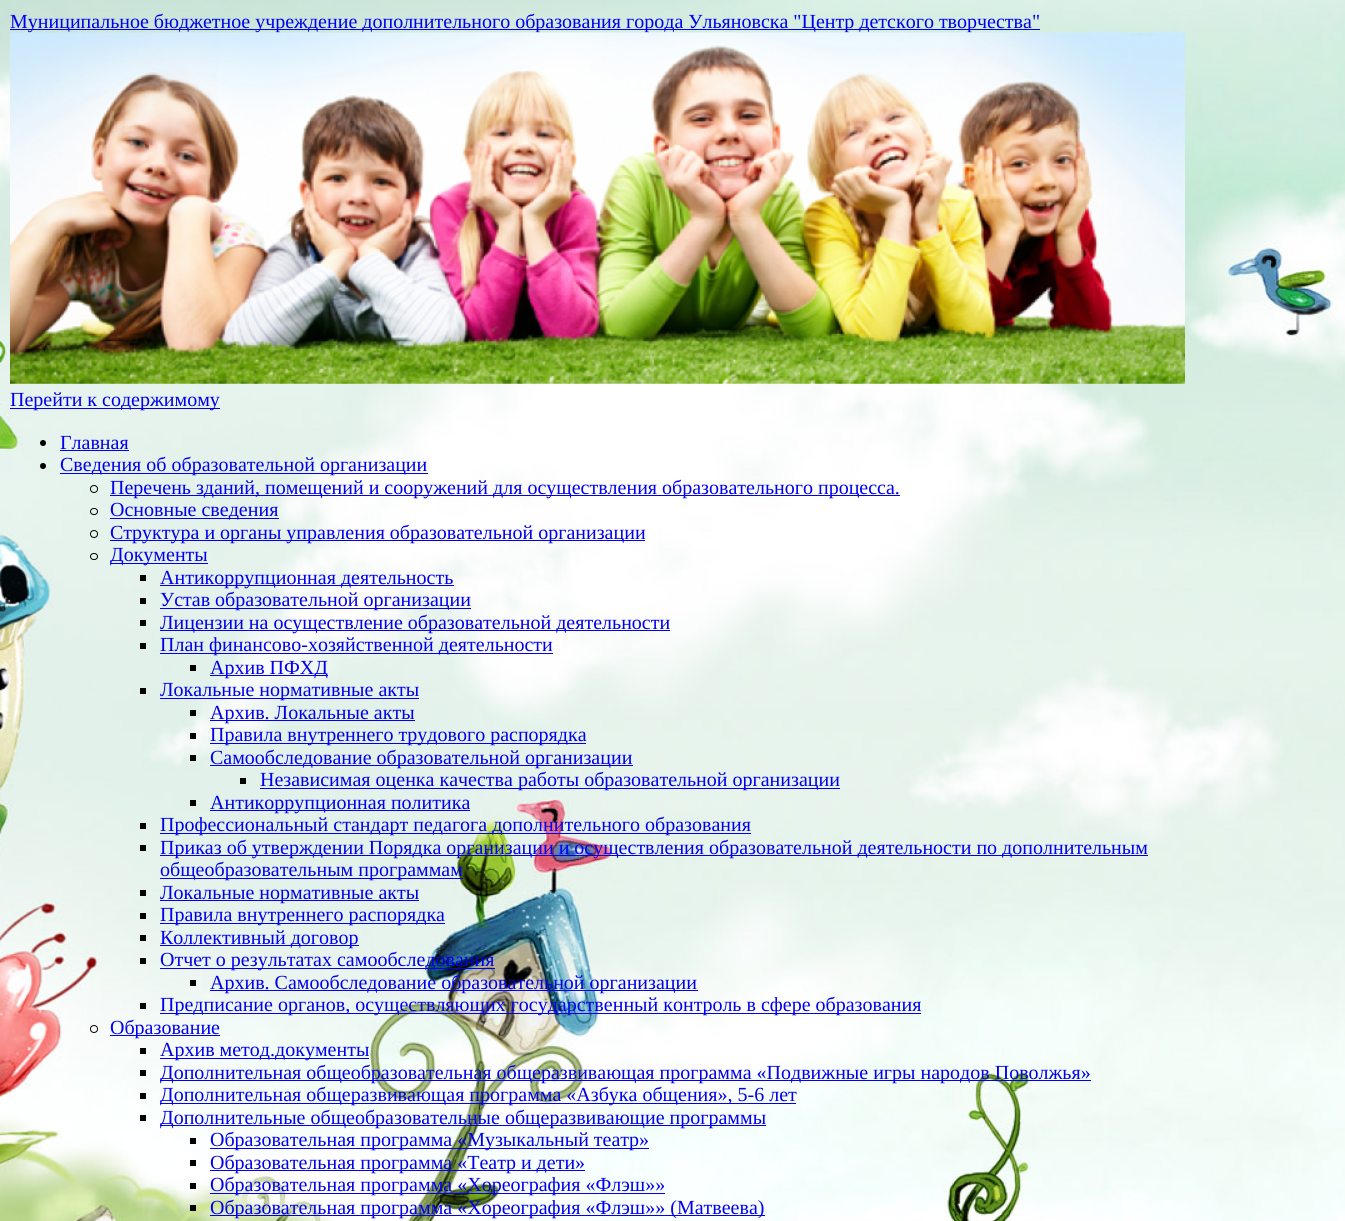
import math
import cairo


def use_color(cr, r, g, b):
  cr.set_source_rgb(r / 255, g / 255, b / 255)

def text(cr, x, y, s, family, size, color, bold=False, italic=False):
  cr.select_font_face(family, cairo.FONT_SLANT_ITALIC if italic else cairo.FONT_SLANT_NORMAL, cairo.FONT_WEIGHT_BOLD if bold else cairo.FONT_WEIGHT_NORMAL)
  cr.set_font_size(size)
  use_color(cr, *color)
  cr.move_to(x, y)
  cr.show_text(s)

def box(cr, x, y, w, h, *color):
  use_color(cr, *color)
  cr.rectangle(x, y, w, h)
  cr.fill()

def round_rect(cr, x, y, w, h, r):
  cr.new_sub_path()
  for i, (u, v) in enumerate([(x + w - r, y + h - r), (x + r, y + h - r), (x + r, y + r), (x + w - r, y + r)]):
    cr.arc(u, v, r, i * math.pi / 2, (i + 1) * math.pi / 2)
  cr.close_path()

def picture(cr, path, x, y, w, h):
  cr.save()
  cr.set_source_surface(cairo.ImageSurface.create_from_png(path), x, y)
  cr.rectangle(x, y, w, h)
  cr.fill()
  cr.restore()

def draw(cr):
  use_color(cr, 255, 255, 255)
  cr.paint()
  picture(cr, "img_01.png", 0, 0, 1345, 1221)
  box(cr, 10, 29, 1030, 1, 0, 0, 238)
  box(cr, 10, 408, 210, 1, 0, 0, 238)
  use_color(cr, 0, 0, 0)
  cr.arc(43, 443, 3, 0, 2 * math.pi)
  cr.fill()
  box(cr, 60, 450, 69, 1, 0, 0, 238)
  use_color(cr, 0, 0, 0)
  cr.arc(43, 466, 3, 0, 2 * math.pi)
  cr.fill()
  box(cr, 60, 473, 368, 1, 0, 0, 238)
  cr.arc(94, 489, 3.5, 0, 2 * math.pi)
  use_color(cr, 0, 0, 0)
  cr.set_line_width(1)
  cr.stroke()
  box(cr, 110, 495, 790, 1, 0, 0, 238)
  round_rect(cr, 90.5, 508.5, 7, 6, 3)
  use_color(cr, 0, 0, 0)
  cr.stroke()
  box(cr, 110, 518, 169, 1, 0, 0, 238)
  cr.arc(94, 534, 3.5, 0, 2 * math.pi)
  use_color(cr, 0, 0, 0)
  cr.stroke()
  box(cr, 110, 540, 535, 1, 0, 0, 238)
  round_rect(cr, 90.5, 553.5, 7, 6, 3)
  use_color(cr, 0, 0, 0)
  cr.stroke()
  box(cr, 110, 563, 98, 1, 0, 0, 238)
  box(cr, 140, 575, 6, 6, 0, 0, 0)
  box(cr, 160, 585, 294, 1, 0, 0, 238)
  box(cr, 140, 598, 6, 6, 0, 0, 0)
  box(cr, 160, 608, 311, 1, 0, 0, 238)
  box(cr, 140, 620, 6, 6, 0, 0, 0)
  box(cr, 160, 630, 510, 1, 0, 0, 238)
  box(cr, 140, 643, 6, 6, 0, 0, 0)
  box(cr, 160, 653, 393, 1, 0, 0, 238)
  box(cr, 190, 665, 6, 6, 0, 0, 0)
  box(cr, 210, 675, 118, 1, 0, 0, 238)
  box(cr, 140, 688, 6, 6, 0, 0, 0)
  box(cr, 160, 698, 259, 1, 0, 0, 238)
  box(cr, 190, 710, 6, 6, 0, 0, 0)
  box(cr, 210, 720, 205, 1, 0, 0, 238)
  box(cr, 190, 733, 6, 6, 0, 0, 0)
  box(cr, 210, 743, 376, 1, 0, 0, 238)
  box(cr, 190, 755, 6, 6, 0, 0, 0)
  box(cr, 210, 765, 423, 1, 0, 0, 238)
  box(cr, 240, 778, 6, 6, 0, 0, 0)
  box(cr, 260, 788, 580, 1, 0, 0, 238)
  box(cr, 190, 800, 6, 6, 0, 0, 0)
  box(cr, 210, 810, 260, 1, 0, 0, 238)
  box(cr, 140, 823, 6, 6, 0, 0, 0)
  box(cr, 160, 833, 591, 1, 0, 0, 238)
  box(cr, 140, 845, 6, 6, 0, 0, 0)
  box(cr, 160, 855, 988, 1, 0, 0, 238)
  box(cr, 160, 878, 303, 1, 0, 0, 238)
  box(cr, 140, 890, 6, 6, 0, 0, 0)
  box(cr, 160, 900, 259, 1, 0, 0, 238)
  box(cr, 140, 913, 6, 6, 0, 0, 0)
  box(cr, 160, 923, 285, 1, 0, 0, 238)
  box(cr, 140, 935, 6, 6, 0, 0, 0)
  box(cr, 160, 945, 199, 1, 0, 0, 238)
  box(cr, 140, 958, 6, 6, 0, 0, 0)
  box(cr, 160, 968, 335, 1, 0, 0, 238)
  box(cr, 190, 980, 6, 6, 0, 0, 0)
  box(cr, 210, 990, 488, 1, 0, 0, 238)
  box(cr, 140, 1003, 6, 6, 0, 0, 0)
  box(cr, 160, 1013, 761, 1, 0, 0, 238)
  cr.arc(94, 1029, 3.5, 0, 2 * math.pi)
  use_color(cr, 0, 0, 0)
  cr.stroke()
  box(cr, 110, 1035, 110, 1, 0, 0, 238)
  box(cr, 140, 1048, 6, 6, 0, 0, 0)
  box(cr, 160, 1058, 209, 1, 0, 0, 238)
  box(cr, 140, 1070, 6, 6, 0, 0, 0)
  box(cr, 160, 1080, 931, 1, 0, 0, 238)
  box(cr, 140, 1093, 6, 6, 0, 0, 0)
  box(cr, 160, 1103, 636, 1, 0, 0, 238)
  box(cr, 140, 1115, 6, 6, 0, 0, 0)
  box(cr, 160, 1125, 606, 1, 0, 0, 238)
  box(cr, 190, 1138, 6, 6, 0, 0, 0)
  box(cr, 210, 1148, 439, 1, 0, 0, 238)
  box(cr, 190, 1160, 6, 6, 0, 0, 0)
  box(cr, 210, 1170, 375, 1, 0, 0, 238)
  box(cr, 190, 1183, 6, 6, 0, 0, 0)
  box(cr, 210, 1193, 455, 1, 0, 0, 238)
  box(cr, 190, 1205, 6, 6, 0, 0, 0)
  box(cr, 210, 1215, 555, 1, 0, 0, 238)
  text(cr, 10, 28, "Муниципальное бюджетное учреждение дополнительного образования города Ульяновска \"Центр детского творчества\"", "Liberation Serif", 20, (0, 0, 238))
  picture(cr, "img_02.png", 10, 32, 1175, 352)
  text(cr, 10, 406, "Перейти к содержимому", "Liberation Serif", 20, (0, 0, 238))
  text(cr, 60, 449, "Главная", "Liberation Serif", 20, (0, 0, 238))
  text(cr, 60, 471, "Сведения об образовательной организации", "Liberation Serif", 20, (0, 0, 238))
  text(cr, 110, 494, "Перечень зданий, помещений и сооружений для осуществления образовательного процесса.", "Liberation Serif", 20, (0, 0, 238))
  text(cr, 110, 516, "Основные сведения", "Liberation Serif", 20, (0, 0, 238))
  text(cr, 110, 539, "Структура и органы управления образовательной организации", "Liberation Serif", 20, (0, 0, 238))
  text(cr, 110, 561, "Документы", "Liberation Serif", 20, (0, 0, 238))
  text(cr, 160, 584, "Антикоррупционная деятельность", "Liberation Serif", 20, (0, 0, 238))
  text(cr, 160, 606, "Устав образовательной организации", "Liberation Serif", 20, (0, 0, 238))
  text(cr, 160, 629, "Лицензии на осуществление образовательной деятельности", "Liberation Serif", 20, (0, 0, 238))
  text(cr, 160, 651, "План финансово-хозяйственной деятельности", "Liberation Serif", 20, (0, 0, 238))
  text(cr, 210, 674, "Архив ПФХД", "Liberation Serif", 20, (0, 0, 238))
  text(cr, 160, 696, "Локальные нормативные акты", "Liberation Serif", 20, (0, 0, 238))
  text(cr, 210, 719, "Архив. Локальные акты", "Liberation Serif", 20, (0, 0, 238))
  text(cr, 210, 741, "Правила внутреннего трудового распорядка", "Liberation Serif", 20, (0, 0, 238))
  text(cr, 210, 764, "Cамообследование образовательной организации", "Liberation Serif", 20, (0, 0, 238))
  text(cr, 260, 786, "Независимая оценка качества работы образовательной организации", "Liberation Serif", 20, (0, 0, 238))
  text(cr, 210, 809, "Антикоррупционная политика", "Liberation Serif", 20, (0, 0, 238))
  text(cr, 160, 831, "Профессиональный стандарт педагога дополнительного образования", "Liberation Serif", 20, (0, 0, 238))
  text(cr, 160, 854, "Приказ об утверждении Порядка организации и осуществления образовательной деятельности по дополнительным", "Liberation Serif", 20, (0, 0, 238))
  text(cr, 160, 876, "общеобразовательным программам", "Liberation Serif", 20, (0, 0, 238))
  text(cr, 160, 899, "Локальные нормативные акты", "Liberation Serif", 20, (0, 0, 238))
  text(cr, 160, 921, "Правила внутреннего распорядка", "Liberation Serif", 20, (0, 0, 238))
  text(cr, 160, 944, "Коллективный договор", "Liberation Serif", 20, (0, 0, 238))
  text(cr, 160, 966, "Отчет о результатах самообследования", "Liberation Serif", 20, (0, 0, 238))
  text(cr, 210, 989, "Архив. Cамообследование образовательной организации", "Liberation Serif", 20, (0, 0, 238))
  text(cr, 160, 1011, "Предписание органов, осуществляющих государственный контроль в сфере образования", "Liberation Serif", 20, (0, 0, 238))
  text(cr, 110, 1034, "Образование", "Liberation Serif", 20, (0, 0, 238))
  text(cr, 160, 1056, "Архив метод.документы", "Liberation Serif", 20, (0, 0, 238))
  text(cr, 160, 1079, "Дополнительная общеобразовательная общеразвивающая программа «Подвижные игры народов Поволжья»", "Liberation Serif", 20, (0, 0, 238))
  text(cr, 160, 1101, "Дополнительная общеразвивающая программа «Азбука общения», 5-6 лет", "Liberation Serif", 20, (0, 0, 238))
  text(cr, 160, 1124, "Дополнительные общеобразовательные общеразвивающие программы", "Liberation Serif", 20, (0, 0, 238))
  text(cr, 210, 1146, "Образовательная программа «Музыкальный театр»", "Liberation Serif", 20, (0, 0, 238))
  text(cr, 210, 1169, "Образовательная программа «Театр и дети»", "Liberation Serif", 20, (0, 0, 238))
  text(cr, 210, 1191, "Образовательная программа «Хореография «Флэш»»", "Liberation Serif", 20, (0, 0, 238))
  text(cr, 210, 1214, "Образовательная программа «Хореография «Флэш»» (Матвеева)", "Liberation Serif", 20, (0, 0, 238))


surface = cairo.ImageSurface(cairo.FORMAT_RGB24, 1345, 1221)
cr = cairo.Context(surface)
options = cairo.FontOptions()
options.set_hint_metrics(cairo.HINT_METRICS_OFF)
options.set_hint_style(cairo.HINT_STYLE_NONE)
cr.set_font_options(options)
cr.set_miter_limit(4)
draw(cr)
surface.write_to_png("out.png")
